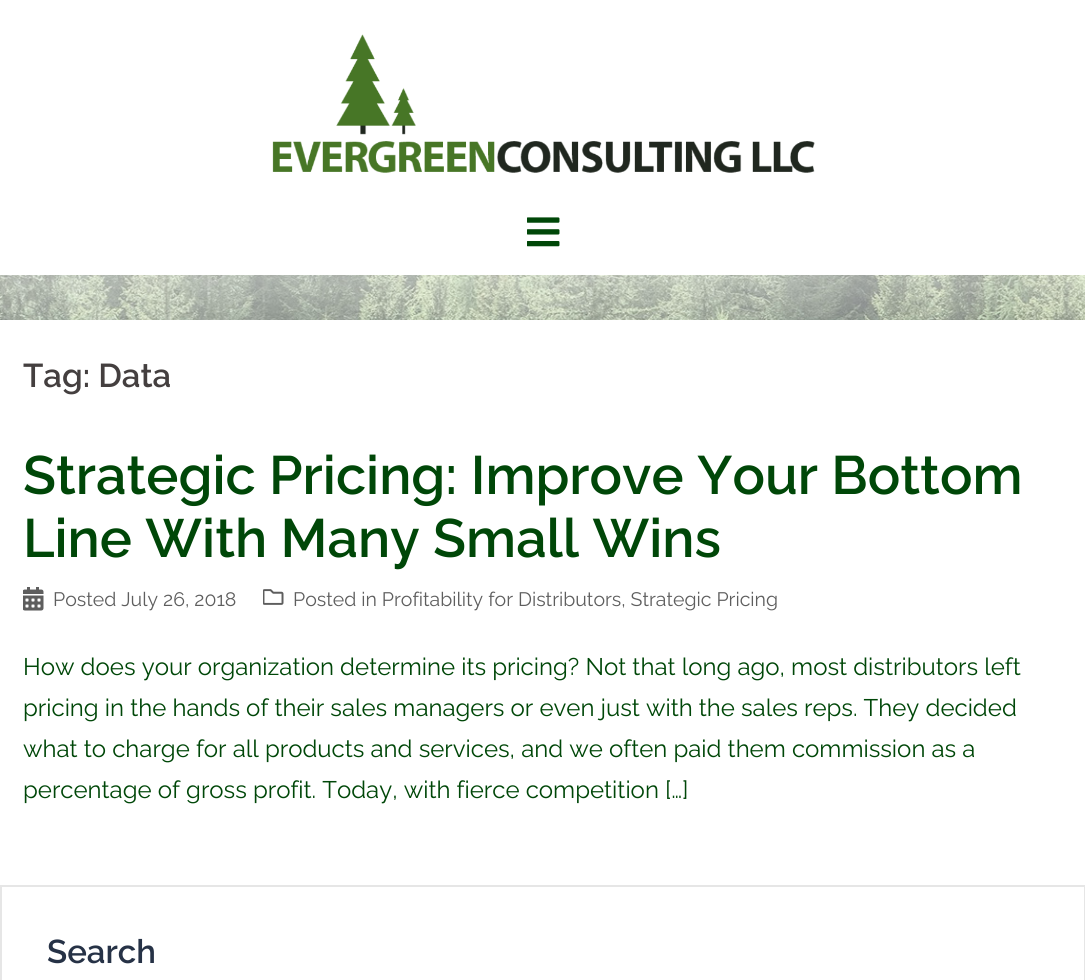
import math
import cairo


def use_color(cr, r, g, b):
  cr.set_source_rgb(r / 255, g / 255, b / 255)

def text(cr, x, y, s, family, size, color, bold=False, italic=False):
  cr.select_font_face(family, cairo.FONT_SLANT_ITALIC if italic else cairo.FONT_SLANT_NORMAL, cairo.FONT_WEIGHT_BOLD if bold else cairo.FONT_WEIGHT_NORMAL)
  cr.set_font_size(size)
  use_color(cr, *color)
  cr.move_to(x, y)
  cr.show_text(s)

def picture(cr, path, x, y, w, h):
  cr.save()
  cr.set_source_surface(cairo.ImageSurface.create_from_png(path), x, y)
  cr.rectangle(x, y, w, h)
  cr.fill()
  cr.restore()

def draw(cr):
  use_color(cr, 255, 255, 255)
  cr.paint()
  picture(cr, "img_01.png", 0, 275, 1085, 45)
  picture(cr, "img_02.png", 272, 34, 543, 139)
  picture(cr, "img_03.png", 527, 217, 33, 30)
  picture(cr, "img_04.png", 23, 587, 21, 24)
  picture(cr, "img_05.png", 263, 589, 21, 16)
  cr.rectangle(1, 886, 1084, 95)
  use_color(cr, 230, 230, 230)
  cr.stroke()
  text(cr, 23, 387, "Tag: Data", "Raleway SemiBold", 33, (68, 63, 63))
  text(cr, 23, 494, "Strategic Pricing: Improve Your Bottom", "Raleway SemiBold", 54, (0, 71, 8))
  text(cr, 23, 557, "Line With Many Small Wins", "Raleway SemiBold", 54, (0, 71, 8))
  text(cr, 53, 606, "Posted July 26, 2018", "Raleway", 19.5, (94, 94, 94))
  text(cr, 293, 606, "Posted in Profitability for Distributors, Strategic Pricing", "Raleway", 19.5, (94, 94, 94))
  text(cr, 23, 675, "How does your organization determine its pricing? Not that long ago, most distributors left", "Raleway", 24, (0, 71, 8))
  text(cr, 23, 716, "pricing in the hands of their sales managers or even just with the sales reps. They decided", "Raleway", 24, (0, 71, 8))
  text(cr, 23, 757, "what to charge for all products and services, and we often paid them commission as a", "Raleway", 24, (0, 71, 8))
  text(cr, 23, 798, "percentage of gross profit. Today, with fierce competition […]", "Raleway", 24, (0, 71, 8))
  text(cr, 47, 963, "Search", "Raleway SemiBold", 33, (38, 50, 70))


surface = cairo.ImageSurface(cairo.FORMAT_RGB24, 1085, 980)
cr = cairo.Context(surface)
options = cairo.FontOptions()
options.set_hint_metrics(cairo.HINT_METRICS_OFF)
options.set_hint_style(cairo.HINT_STYLE_NONE)
cr.set_font_options(options)
cr.set_miter_limit(4)
draw(cr)
surface.write_to_png("out.png")
